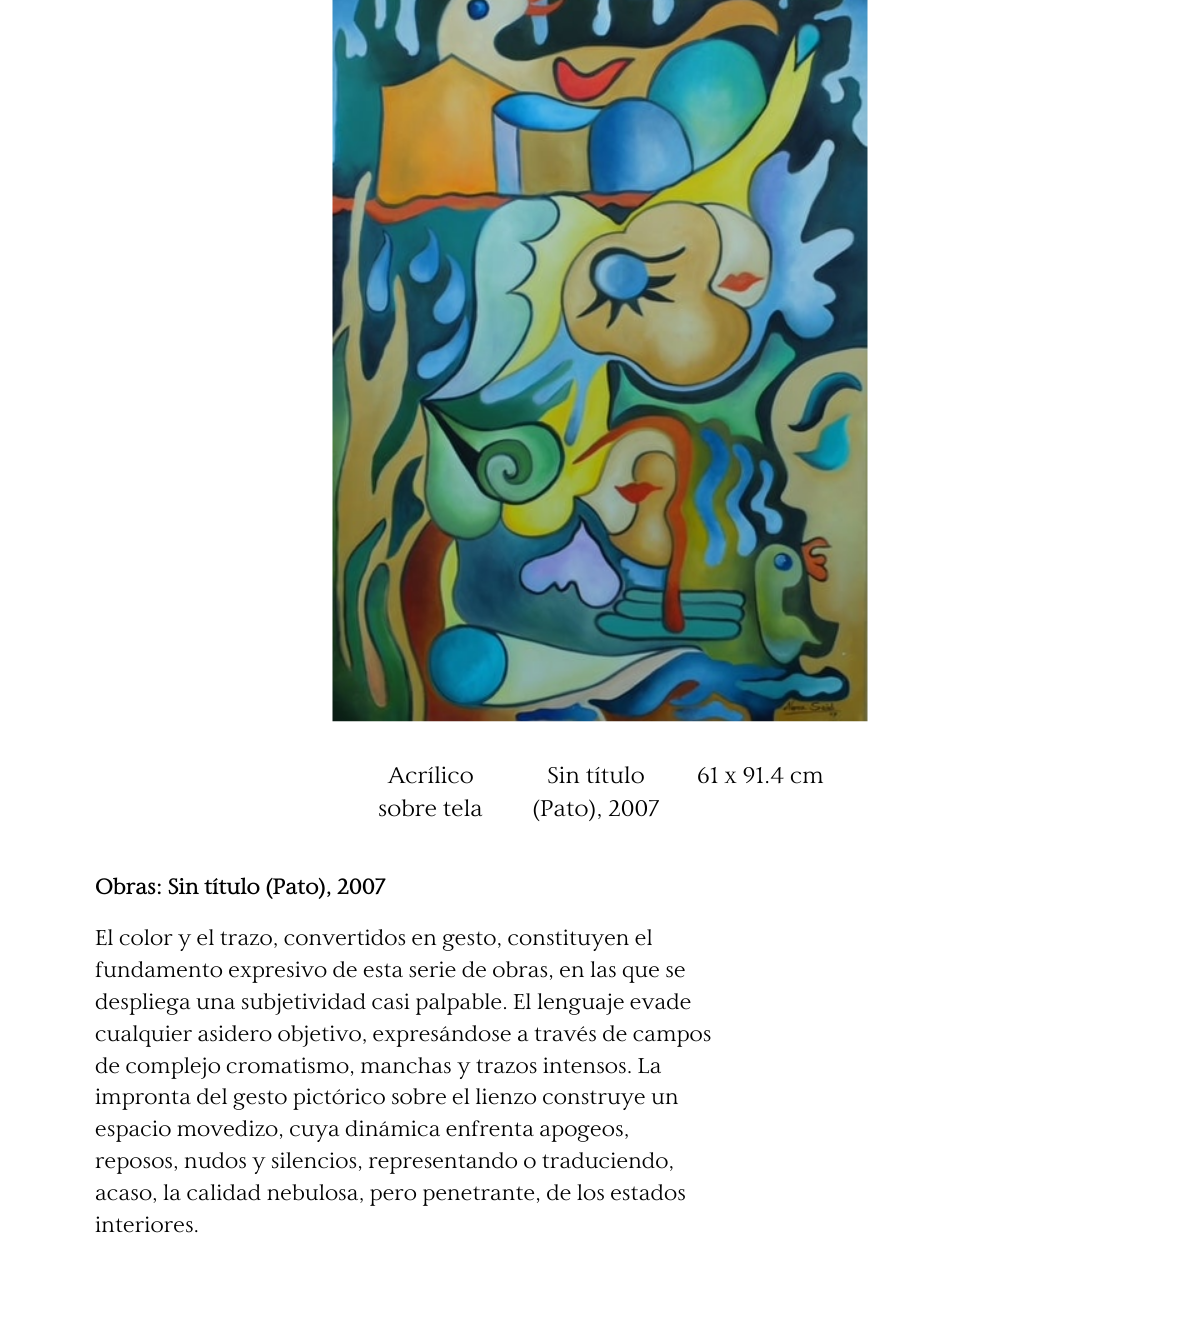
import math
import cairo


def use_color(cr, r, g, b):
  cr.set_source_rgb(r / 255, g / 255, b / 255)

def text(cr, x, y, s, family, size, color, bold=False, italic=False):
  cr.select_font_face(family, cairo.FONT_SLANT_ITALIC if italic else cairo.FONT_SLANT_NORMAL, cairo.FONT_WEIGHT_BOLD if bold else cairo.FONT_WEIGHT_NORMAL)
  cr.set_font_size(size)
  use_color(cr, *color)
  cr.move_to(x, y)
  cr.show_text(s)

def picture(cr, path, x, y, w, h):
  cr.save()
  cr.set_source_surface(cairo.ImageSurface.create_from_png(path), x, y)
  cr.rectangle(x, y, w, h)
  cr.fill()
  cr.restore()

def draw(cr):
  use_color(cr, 255, 255, 255)
  cr.paint()
  picture(cr, "img_01.png", 332, 0, 536, 722)
  text(cr, 388, 783, "Acrílico", "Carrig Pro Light", 22.5, (0, 0, 0))
  text(cr, 378, 816, "sobre tela", "Carrig Pro Light", 22.5, (0, 0, 0))
  text(cr, 547, 783, "Sin título", "Carrig Pro Light", 22.5, (0, 0, 0))
  text(cr, 532, 816, "(Pato), 2007", "Carrig Pro Light", 22.5, (0, 0, 0))
  text(cr, 697, 783, "61 x 91.4 cm", "Carrig Pro Light", 22.5, (0, 0, 0))
  text(cr, 95, 894, "Obras: Sin título (Pato), 2007", "Carrig Pro", 21.25, (0, 0, 0), bold=True)
  text(cr, 95, 945, "El color y el trazo, convertidos en gesto, constituyen el", "Carrig Pro Light", 21.25, (0, 0, 0))
  text(cr, 95, 977, "fundamento expresivo de esta serie de obras, en las que se", "Carrig Pro Light", 21.25, (0, 0, 0))
  text(cr, 95, 1009, "despliega una subjetividad casi palpable. El lenguaje evade", "Carrig Pro Light", 21.25, (0, 0, 0))
  text(cr, 95, 1041, "cualquier asidero objetivo, expresándose a través de campos", "Carrig Pro Light", 21.25, (0, 0, 0))
  text(cr, 95, 1073, "de complejo cromatismo, manchas y trazos intensos. La", "Carrig Pro Light", 21.25, (0, 0, 0))
  text(cr, 95, 1104, "impronta del gesto pictórico sobre el lienzo construye un", "Carrig Pro Light", 21.25, (0, 0, 0))
  text(cr, 95, 1136, "espacio movedizo, cuya dinámica enfrenta apogeos,", "Carrig Pro Light", 21.25, (0, 0, 0))
  text(cr, 95, 1168, "reposos, nudos y silencios, representando o traduciendo,", "Carrig Pro Light", 21.25, (0, 0, 0))
  text(cr, 95, 1200, "acaso, la calidad nebulosa, pero penetrante, de los estados", "Carrig Pro Light", 21.25, (0, 0, 0))
  text(cr, 95, 1232, "interiores.", "Carrig Pro Light", 21.25, (0, 0, 0))


surface = cairo.ImageSurface(cairo.FORMAT_RGB24, 1198, 1338)
cr = cairo.Context(surface)
options = cairo.FontOptions()
options.set_hint_metrics(cairo.HINT_METRICS_OFF)
options.set_hint_style(cairo.HINT_STYLE_NONE)
cr.set_font_options(options)
cr.set_miter_limit(4)
draw(cr)
surface.write_to_png("out.png")
